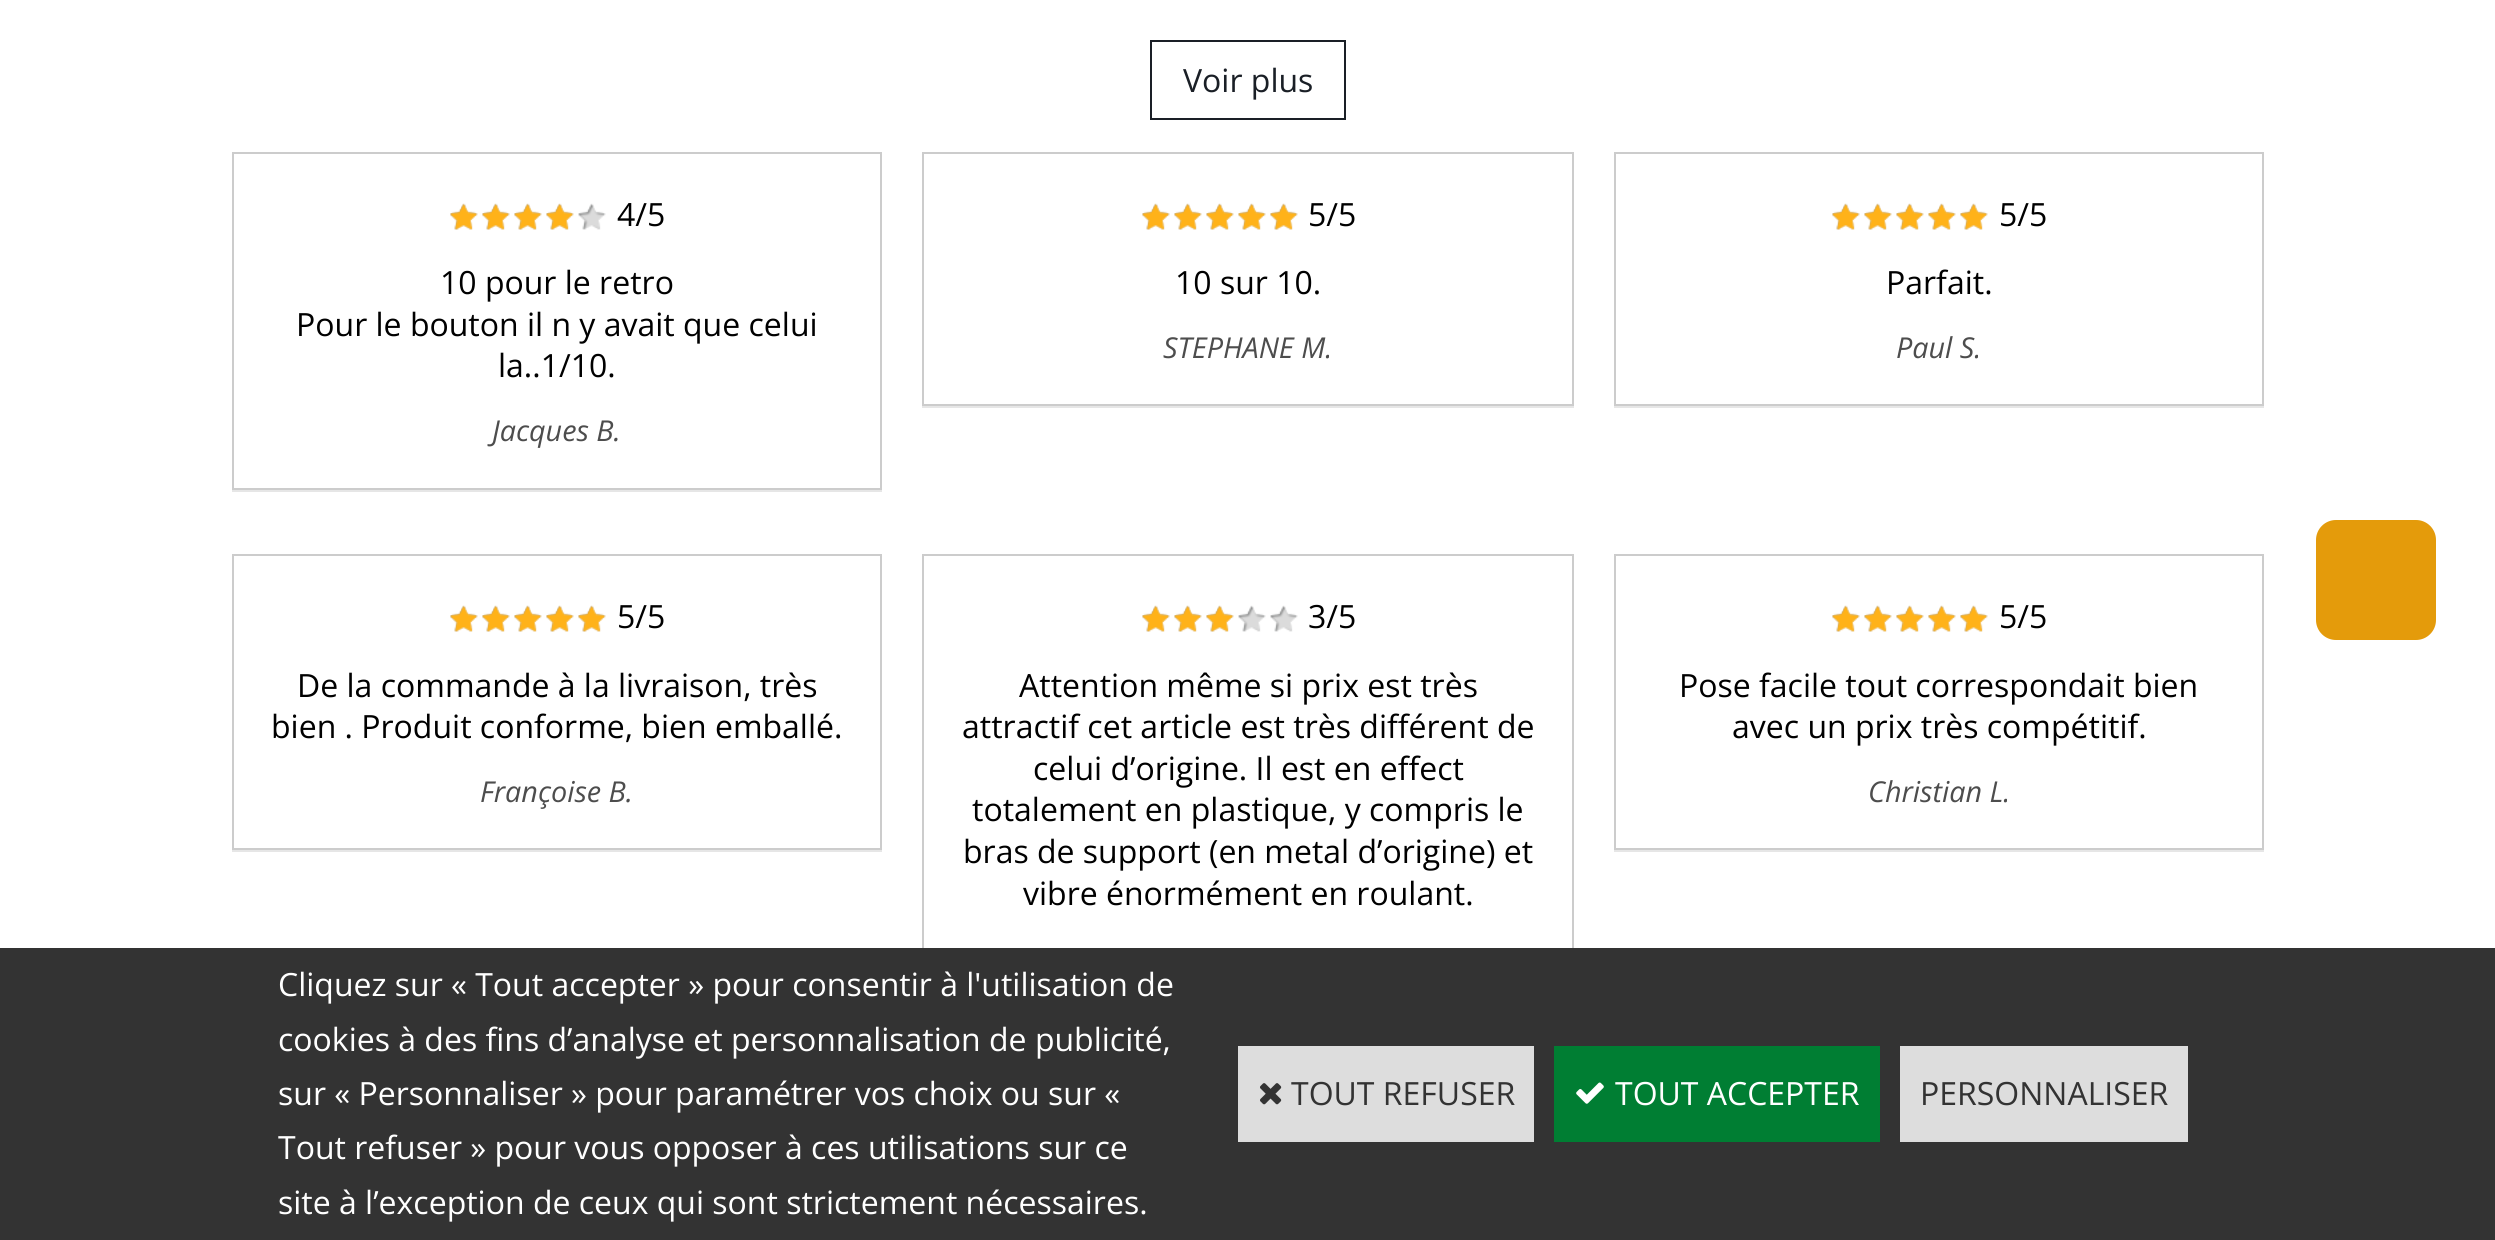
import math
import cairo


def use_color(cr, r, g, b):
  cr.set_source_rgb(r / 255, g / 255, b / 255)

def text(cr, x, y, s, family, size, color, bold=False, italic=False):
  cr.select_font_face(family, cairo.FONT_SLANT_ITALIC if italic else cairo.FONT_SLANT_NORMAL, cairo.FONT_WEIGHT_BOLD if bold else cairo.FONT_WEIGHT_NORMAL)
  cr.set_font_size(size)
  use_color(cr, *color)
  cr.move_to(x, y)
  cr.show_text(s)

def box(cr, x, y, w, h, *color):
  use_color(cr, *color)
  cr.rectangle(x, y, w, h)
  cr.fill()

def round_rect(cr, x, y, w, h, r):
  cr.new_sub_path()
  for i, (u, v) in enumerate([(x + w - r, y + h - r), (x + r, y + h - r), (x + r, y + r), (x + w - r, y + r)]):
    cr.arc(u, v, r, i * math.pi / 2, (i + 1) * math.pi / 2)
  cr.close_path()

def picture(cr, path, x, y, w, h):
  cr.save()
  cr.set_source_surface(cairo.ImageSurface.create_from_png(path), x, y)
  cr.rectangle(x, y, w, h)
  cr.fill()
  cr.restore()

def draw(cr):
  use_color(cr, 255, 255, 255)
  cr.paint()
  cr.rectangle(1151, 41, 194, 78)
  use_color(cr, 26, 31, 38)
  cr.stroke()
  box(cr, 232, 490, 650, 2, 230, 230, 230)
  cr.rectangle(233, 153, 648, 336)
  use_color(cr, 204, 204, 204)
  cr.stroke()
  picture(cr, "img_01.png", 450, 203, 156, 27)
  picture(cr, "img_02.png", 450, 203, 124, 27)
  box(cr, 922, 406, 652, 2, 230, 230, 230)
  cr.rectangle(923, 153, 650, 252)
  use_color(cr, 204, 204, 204)
  cr.stroke()
  picture(cr, "img_01.png", 1142, 203, 156, 27)
  picture(cr, "img_03.png", 1142, 203, 156, 27)
  box(cr, 1614, 406, 650, 2, 230, 230, 230)
  cr.rectangle(1615, 153, 648, 252)
  use_color(cr, 204, 204, 204)
  cr.stroke()
  picture(cr, "img_01.png", 1832, 203, 156, 27)
  picture(cr, "img_03.png", 1832, 203, 156, 27)
  box(cr, 232, 850, 650, 2, 230, 230, 230)
  cr.rectangle(233, 555, 648, 294)
  use_color(cr, 204, 204, 204)
  cr.stroke()
  picture(cr, "img_01.png", 450, 605, 156, 27)
  picture(cr, "img_03.png", 450, 605, 156, 27)
  cr.rectangle(923, 555, 650, 462)
  cr.stroke()
  picture(cr, "img_01.png", 1142, 605, 156, 27)
  picture(cr, "img_04.png", 1142, 605, 92, 27)
  box(cr, 1614, 850, 650, 2, 230, 230, 230)
  cr.rectangle(1615, 555, 648, 294)
  use_color(cr, 204, 204, 204)
  cr.stroke()
  picture(cr, "img_01.png", 1832, 605, 156, 27)
  picture(cr, "img_03.png", 1832, 605, 156, 27)
  use_color(cr, 228, 155, 11)
  round_rect(cr, 2316, 520, 120, 120, 20)
  cr.fill()
  box(cr, 0, 948, 2495, 292, 51, 51, 51)
  box(cr, 1238, 1046, 296, 96, 221, 221, 221)
  picture(cr, "img_05.png", 1260, 1083, 22, 22)
  box(cr, 1554, 1046, 326, 96, 0, 126, 51)
  picture(cr, "img_06.png", 1576, 1082, 28, 22)
  box(cr, 1900, 1046, 288, 96, 221, 221, 221)
  text(cr, 1183, 92, "Voir plus", "Open Sans", 32, (26, 31, 38))
  text(cr, 617, 226, "4/5", "Open Sans", 32, (0, 0, 0))
  text(cr, 440, 294, "10 pour le retro", "Open Sans", 32, (0, 0, 0))
  text(cr, 296, 336, "Pour le bouton il n y avait que celui", "Open Sans", 32, (0, 0, 0))
  text(cr, 498, 377, "la..1/10.", "Open Sans", 32, (0, 0, 0))
  text(cr, 492, 441, "Jacques B.", "Open Sans", 28.75, (77, 77, 77), italic=True)
  text(cr, 1308, 226, "5/5", "Open Sans", 32, (0, 0, 0))
  text(cr, 1175, 294, "10 sur 10.", "Open Sans", 32, (0, 0, 0))
  text(cr, 1163, 358, "STEPHANE M.", "Open Sans", 28.75, (77, 77, 77), italic=True)
  text(cr, 1999, 226, "5/5", "Open Sans", 32, (0, 0, 0))
  text(cr, 1886, 294, "Parfait.", "Open Sans", 32, (0, 0, 0))
  text(cr, 1896, 358, "Paul S.", "Open Sans", 28.75, (77, 77, 77), italic=True)
  text(cr, 617, 628, "5/5", "Open Sans", 32, (0, 0, 0))
  text(cr, 297, 697, "De la commande à la livraison, très", "Open Sans", 32, (0, 0, 0))
  text(cr, 271, 738, "bien . Produit conforme, bien emballé.", "Open Sans", 32, (0, 0, 0))
  text(cr, 480, 802, "Françoise B.", "Open Sans", 28.75, (77, 77, 77), italic=True)
  text(cr, 1308, 628, "3/5", "Open Sans", 32, (0, 0, 0))
  text(cr, 1019, 697, "Attention même si prix est très", "Open Sans", 32, (0, 0, 0))
  text(cr, 962, 738, "attractif cet article est très différent de", "Open Sans", 32, (0, 0, 0))
  text(cr, 1033, 780, "celui d’origine. Il est en effect", "Open Sans", 32, (0, 0, 0))
  text(cr, 972, 821, "totalement en plastique, y compris le", "Open Sans", 32, (0, 0, 0))
  text(cr, 963, 863, "bras de support (en metal d’origine) et", "Open Sans", 32, (0, 0, 0))
  text(cr, 1023, 905, "vibre énormément en roulant.", "Open Sans", 32, (0, 0, 0))
  text(cr, 1999, 628, "5/5", "Open Sans", 32, (0, 0, 0))
  text(cr, 1679, 697, "Pose facile tout correspondait bien", "Open Sans", 32, (0, 0, 0))
  text(cr, 1732, 738, "avec un prix très compétitif.", "Open Sans", 32, (0, 0, 0))
  text(cr, 1868, 802, "Christian L.", "Open Sans", 28.75, (77, 77, 77), italic=True)
  text(cr, 278, 996, "Cliquez sur « Tout accepter » pour consentir à l'utilisation de", "Open Sans", 32, (255, 255, 255))
  text(cr, 278, 1051, "cookies à des fins d’analyse et personnalisation de publicité,", "Open Sans", 32, (255, 255, 255))
  text(cr, 278, 1105, "sur « Personnaliser » pour paramétrer vos choix ou sur «", "Open Sans", 32, (255, 255, 255))
  text(cr, 278, 1159, "Tout refuser » pour vous opposer à ces utilisations sur ce", "Open Sans", 32, (255, 255, 255))
  text(cr, 278, 1214, "site à l’exception de ceux qui sont strictement nécessaires.", "Open Sans", 32, (255, 255, 255))
  text(cr, 1291, 1105, "TOUT REFUSER", "Open Sans", 32, (51, 51, 51))
  text(cr, 1615, 1105, "TOUT ACCEPTER", "Open Sans", 32, (255, 255, 255))
  text(cr, 1920, 1105, "PERSONNALISER", "Open Sans", 32, (51, 51, 51))


surface = cairo.ImageSurface(cairo.FORMAT_RGB24, 2495, 1240)
cr = cairo.Context(surface)
options = cairo.FontOptions()
options.set_hint_metrics(cairo.HINT_METRICS_OFF)
options.set_hint_style(cairo.HINT_STYLE_NONE)
cr.set_font_options(options)
cr.set_miter_limit(4)
draw(cr)
surface.write_to_png("out.png")
